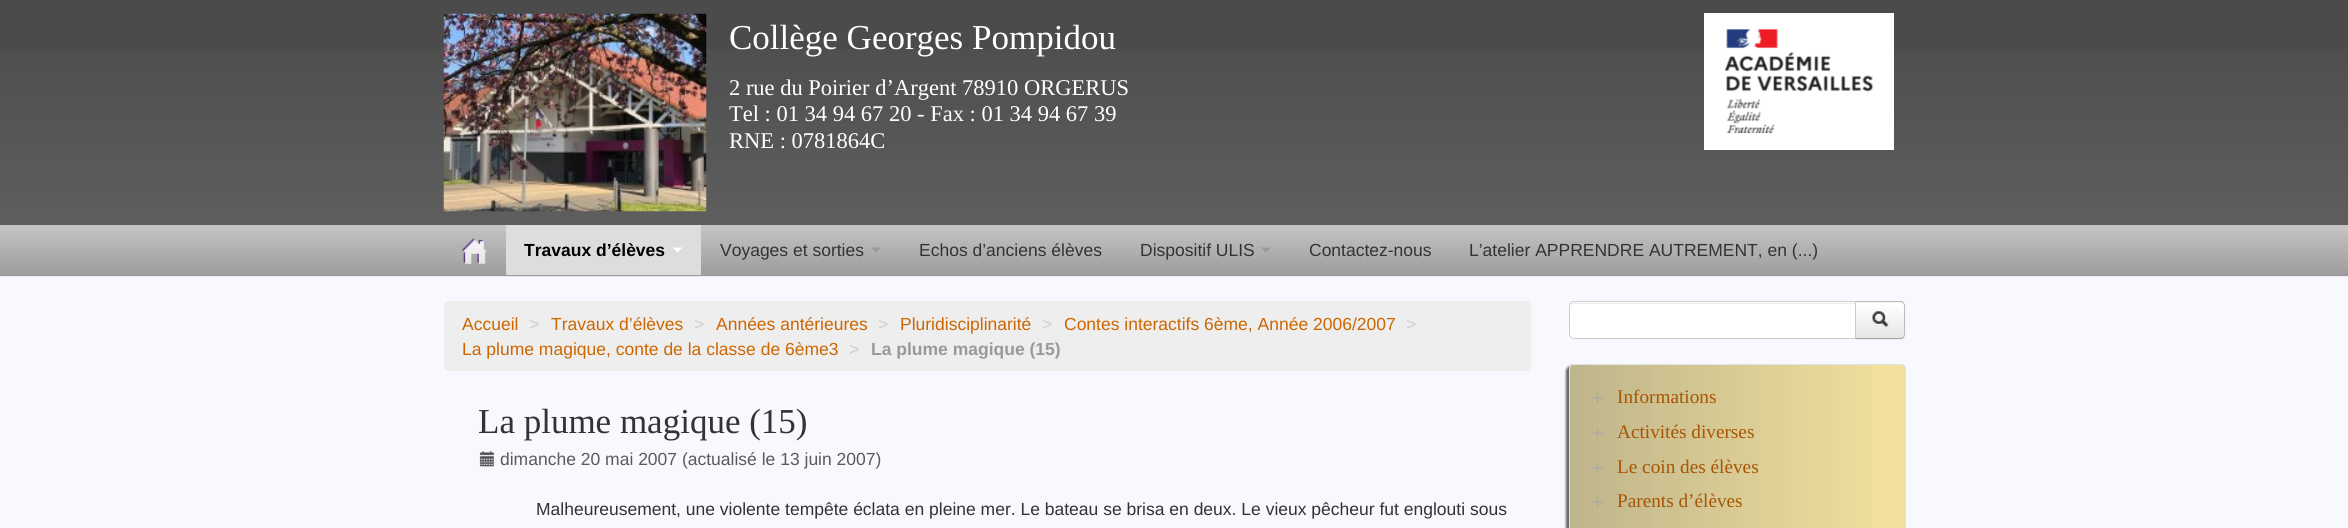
import math
import cairo


def use_color(cr, r, g, b):
  cr.set_source_rgb(r / 255, g / 255, b / 255)

def text(cr, x, y, s, family, size, color, bold=False, italic=False):
  cr.select_font_face(family, cairo.FONT_SLANT_ITALIC if italic else cairo.FONT_SLANT_NORMAL, cairo.FONT_WEIGHT_BOLD if bold else cairo.FONT_WEIGHT_NORMAL)
  cr.set_font_size(size)
  use_color(cr, *color)
  cr.move_to(x, y)
  cr.show_text(s)

def box(cr, x, y, w, h, *color):
  use_color(cr, *color)
  cr.rectangle(x, y, w, h)
  cr.fill()

def round_rect(cr, x, y, w, h, r):
  cr.new_sub_path()
  for i, (u, v) in enumerate([(x + w - r, y + h - r), (x + r, y + h - r), (x + r, y + r), (x + w - r, y + r)]):
    cr.arc(u, v, r, i * math.pi / 2, (i + 1) * math.pi / 2)
  cr.close_path()

def shadow(cr, x, y, w, h, r, blur, alpha):
  cr.push_group_with_content(cairo.CONTENT_ALPHA)
  cr.set_operator(cairo.OPERATOR_SOURCE)
  for i in range(15, -16, -2):
    e = blur * i / 6
    if min(w, h) + 2 * e > 0:
      cr.set_source_rgba(0, 0, 0, alpha * math.erfc((i - 1) / 8.5) / 2)
      round_rect(cr, x - e, y - e, w + 2 * e, h + 2 * e, max(0, min(r + e + blur * .6, min(w, h) / 2 + e)))
      cr.fill()
  cr.mask(cr.pop_group())

def picture(cr, path, x, y, w, h):
  cr.save()
  cr.set_source_surface(cairo.ImageSurface.create_from_png(path), x, y)
  cr.rectangle(x, y, w, h)
  cr.fill()
  cr.restore()

def draw(cr):
  use_color(cr, 248, 248, 255)
  cr.paint()
  box(cr, 0, 0, 2348, 225, 75, 75, 75)
  picture(cr, "img_01.png", 0, 49, 2348, 176)
  picture(cr, "img_02.png", 443, 13, 264, 199)
  box(cr, 1704, 13, 190, 137, 255, 255, 255)
  picture(cr, "img_03.png", 1725, 29, 148, 105)
  box(cr, 0, 225, 2348, 51, 196, 196, 196)
  picture(cr, "img_04.png", 0, 231, 2348, 46)
  picture(cr, "img_05.png", 462, 238, 26, 26)
  box(cr, 506, 225, 195, 50, 221, 221, 221)
  use_color(cr, 255, 255, 255)
  cr.new_path()
  cr.move_to(672.5, 247.5)
  cr.line_to(682.5, 247.5)
  cr.line_to(677.5, 252.5)
  cr.close_path()
  cr.fill()
  use_color(cr, 153, 153, 153)
  cr.new_path()
  cr.move_to(871, 247.5)
  cr.line_to(881, 247.5)
  cr.line_to(876, 252.5)
  cr.close_path()
  cr.fill()
  cr.new_path()
  cr.move_to(1261, 247.5)
  cr.line_to(1271, 247.5)
  cr.line_to(1266, 252.5)
  cr.close_path()
  cr.fill()
  use_color(cr, 238, 238, 238)
  round_rect(cr, 444, 301, 1087, 70, 5)
  cr.fill()
  picture(cr, "img_06.png", 479, 451, 15, 16)
  use_color(cr, 0, 0, 0)
  shadow(cr, 1855, 303, 50, 37, 5, 1, 0.05)
  use_color(cr, 245, 245, 245)
  cr.new_path()
  cr.move_to(1855, 301)
  cr.line_to(1900, 301)
  cr.curve_to(1903, 301, 1905, 303, 1905, 306)
  cr.line_to(1905, 334)
  cr.curve_to(1905, 337, 1903, 339, 1900, 339)
  cr.line_to(1855, 339)
  cr.close_path()
  cr.fill()
  use_color(cr, 187, 187, 187)
  cr.new_path()
  cr.move_to(1856, 302)
  cr.line_to(1855, 301)
  cr.line_to(1902, 301)
  cr.line_to(1904, 303)
  cr.line_to(1903, 303)
  cr.line_to(1900, 302)
  cr.close_path()
  cr.fill()
  cr.save()
  cr.new_path()
  cr.move_to(1855, 301)
  cr.line_to(1900, 301)
  cr.curve_to(1903, 301, 1905, 303, 1905, 306)
  cr.line_to(1905, 334)
  cr.curve_to(1905, 337, 1903, 339, 1900, 339)
  cr.line_to(1855, 339)
  cr.close_path()
  cr.clip()
  gradient = cairo.LinearGradient(1880, 303, 1880, 338)
  gradient.add_color_stop_rgba(0, 1, 1, 1, 1)
  gradient.add_color_stop_rgba(1, 0.902, 0.902, 0.902, 1)
  cr.set_source(gradient)
  cr.rectangle(1856, 303, 49, 35)
  cr.fill()
  cr.restore()
  cr.new_path()
  cr.move_to(1905, 334)
  cr.line_to(1905, 306)
  cr.curve_to(1905, 304.5, 1904.5, 303.5, 1903.5, 302.5)
  cr.line_to(1903, 303.5)
  cr.curve_to(1903.5, 304, 1904, 305, 1904, 306)
  cr.line_to(1904, 334)
  cr.curve_to(1904, 335, 1903.5, 336, 1903, 336.5)
  cr.line_to(1903.5, 337.5)
  cr.curve_to(1904.5, 336.5, 1905, 335.5, 1905, 334)
  cr.close_path()
  cr.fill()
  use_color(cr, 162, 162, 162)
  cr.new_path()
  cr.move_to(1902, 339)
  cr.line_to(1855, 339)
  cr.line_to(1856, 338)
  cr.line_to(1901, 338)
  cr.line_to(1903, 337)
  cr.line_to(1904, 337)
  cr.close_path()
  cr.fill()
  use_color(cr, 255, 255, 255)
  cr.new_path()
  cr.move_to(1574, 301)
  cr.line_to(1856, 301)
  cr.line_to(1856, 339)
  cr.line_to(1574, 339)
  cr.curve_to(1571, 339, 1569, 337, 1569, 334)
  cr.line_to(1569, 306)
  cr.curve_to(1569, 303, 1571, 301, 1574, 301)
  cr.close_path()
  cr.fill()
  use_color(cr, 236, 236, 236)
  cr.new_path()
  cr.move_to(1574, 304)
  cr.line_to(1855, 304)
  cr.line_to(1855, 303)
  cr.line_to(1574, 303)
  cr.curve_to(1571, 303, 1570, 305, 1570, 308)
  cr.curve_to(1570, 305, 1572, 304, 1574, 304)
  cr.close_path()
  cr.fill()
  cr.new_path()
  cr.move_to(1574, 301.5)
  cr.line_to(1855.5, 301.5)
  cr.line_to(1855.5, 338.5)
  cr.line_to(1574, 338.5)
  cr.curve_to(1571.5, 338.5, 1569.5, 336.5, 1569.5, 334)
  cr.line_to(1569.5, 306)
  cr.curve_to(1569.5, 303.5, 1571.5, 301.5, 1574, 301.5)
  cr.close_path()
  use_color(cr, 204, 204, 204)
  cr.set_line_width(1)
  cr.stroke()
  picture(cr, "img_07.png", 1872, 311, 17, 17)
  use_color(cr, 102, 102, 102)
  shadow(cr, 1566, 366, 338, 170, 5, 1, 1)
  use_color(cr, 242, 225, 157)
  round_rect(cr, 1569, 364, 337, 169, 5)
  cr.fill()
  picture(cr, "img_08.png", 1570, 364, 302, 164)
  round_rect(cr, 1569.5, 364.5, 336, 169, 4.5)
  use_color(cr, 227, 227, 227)
  cr.stroke()
  picture(cr, "img_09.png", 1591, 392, 13, 12)
  picture(cr, "img_10.png", 1591, 427, 13, 12)
  picture(cr, "img_10.png", 1591, 462, 13, 12)
  picture(cr, "img_11.png", 1591, 496, 13, 12)
  text(cr, 729, 49, "Collège Georges Pompidou", "Liberation Serif", 35, (255, 255, 255))
  text(cr, 729, 95, "2 rue du Poirier d’Argent 78910 ORGERUS", "Liberation Serif", 22.5, (255, 255, 255))
  text(cr, 729, 121, "Tel : 01 34 94 67 20 - Fax : 01 34 94 67 39", "Liberation Serif", 22.5, (255, 255, 255))
  text(cr, 729, 148, "RNE : 0781864C", "Liberation Serif", 22.5, (255, 255, 255))
  text(cr, 524, 256, "Travaux d’élèves", "Liberation Sans", 17.5, (0, 0, 0), bold=True)
  text(cr, 720, 256, "Voyages et sorties", "Liberation Sans", 17.5, (51, 51, 51))
  text(cr, 919, 256, "Echos d’anciens élèves", "Liberation Sans", 17.5, (51, 51, 51))
  text(cr, 1140, 256, "Dispositif ULIS", "Liberation Sans", 17.5, (51, 51, 51))
  text(cr, 1309, 256, "Contactez-nous", "Liberation Sans", 17.5, (51, 51, 51))
  text(cr, 1469, 256, "L’atelier APPRENDRE AUTREMENT, en (...)", "Liberation Sans", 17.5, (51, 51, 51))
  text(cr, 462, 330, "Accueil", "Liberation Sans", 17.5, (204, 102, 0))
  text(cr, 529, 330, ">", "Liberation Sans", 17.5, (204, 204, 204))
  text(cr, 551, 330, "Travaux d’élèves", "Liberation Sans", 17.5, (204, 102, 0))
  text(cr, 694, 330, ">", "Liberation Sans", 17.5, (204, 204, 204))
  text(cr, 716, 330, "Années antérieures", "Liberation Sans", 17.5, (204, 102, 0))
  text(cr, 878, 330, ">", "Liberation Sans", 17.5, (204, 204, 204))
  text(cr, 900, 330, "Pluridisciplinarité", "Liberation Sans", 17.5, (204, 102, 0))
  text(cr, 1042, 330, ">", "Liberation Sans", 17.5, (204, 204, 204))
  text(cr, 1064, 330, "Contes interactifs 6ème, Année 2006/2007", "Liberation Sans", 17.5, (204, 102, 0))
  text(cr, 1406, 330, ">", "Liberation Sans", 17.5, (204, 204, 204))
  text(cr, 462, 355, "La plume magique, conte de la classe de 6ème3", "Liberation Sans", 17.5, (204, 102, 0))
  text(cr, 849, 355, ">", "Liberation Sans", 17.5, (204, 204, 204))
  text(cr, 871, 355, "La plume magique (15)", "Liberation Sans", 17.5, (153, 153, 153), bold=True)
  text(cr, 478, 433, "La plume magique (15)", "Liberation Serif", 35, (51, 51, 51))
  text(cr, 500, 465, "dimanche 20 mai 2007 (actualisé le 13 juin 2007)", "Liberation Sans", 17.5, (90, 90, 92))
  text(cr, 536, 515, "Malheureusement, une violente tempête éclata en pleine mer. Le bateau se brisa en deux. Le vieux pêcheur fut englouti sous", "Liberation Sans", 17.5, (51, 51, 51))
  text(cr, 1617, 403, "Informations", "Liberation Serif", 19.25, (168, 85, 3))
  text(cr, 1617, 438, "Activités diverses", "Liberation Serif", 19.25, (168, 85, 3))
  text(cr, 1617, 473, "Le coin des élèves", "Liberation Serif", 19.25, (168, 85, 3))
  text(cr, 1617, 507, "Parents d’élèves", "Liberation Serif", 19.25, (168, 85, 3))


surface = cairo.ImageSurface(cairo.FORMAT_RGB24, 2348, 528)
cr = cairo.Context(surface)
options = cairo.FontOptions()
options.set_hint_metrics(cairo.HINT_METRICS_OFF)
options.set_hint_style(cairo.HINT_STYLE_NONE)
cr.set_font_options(options)
cr.set_miter_limit(4)
draw(cr)
surface.write_to_png("out.png")
